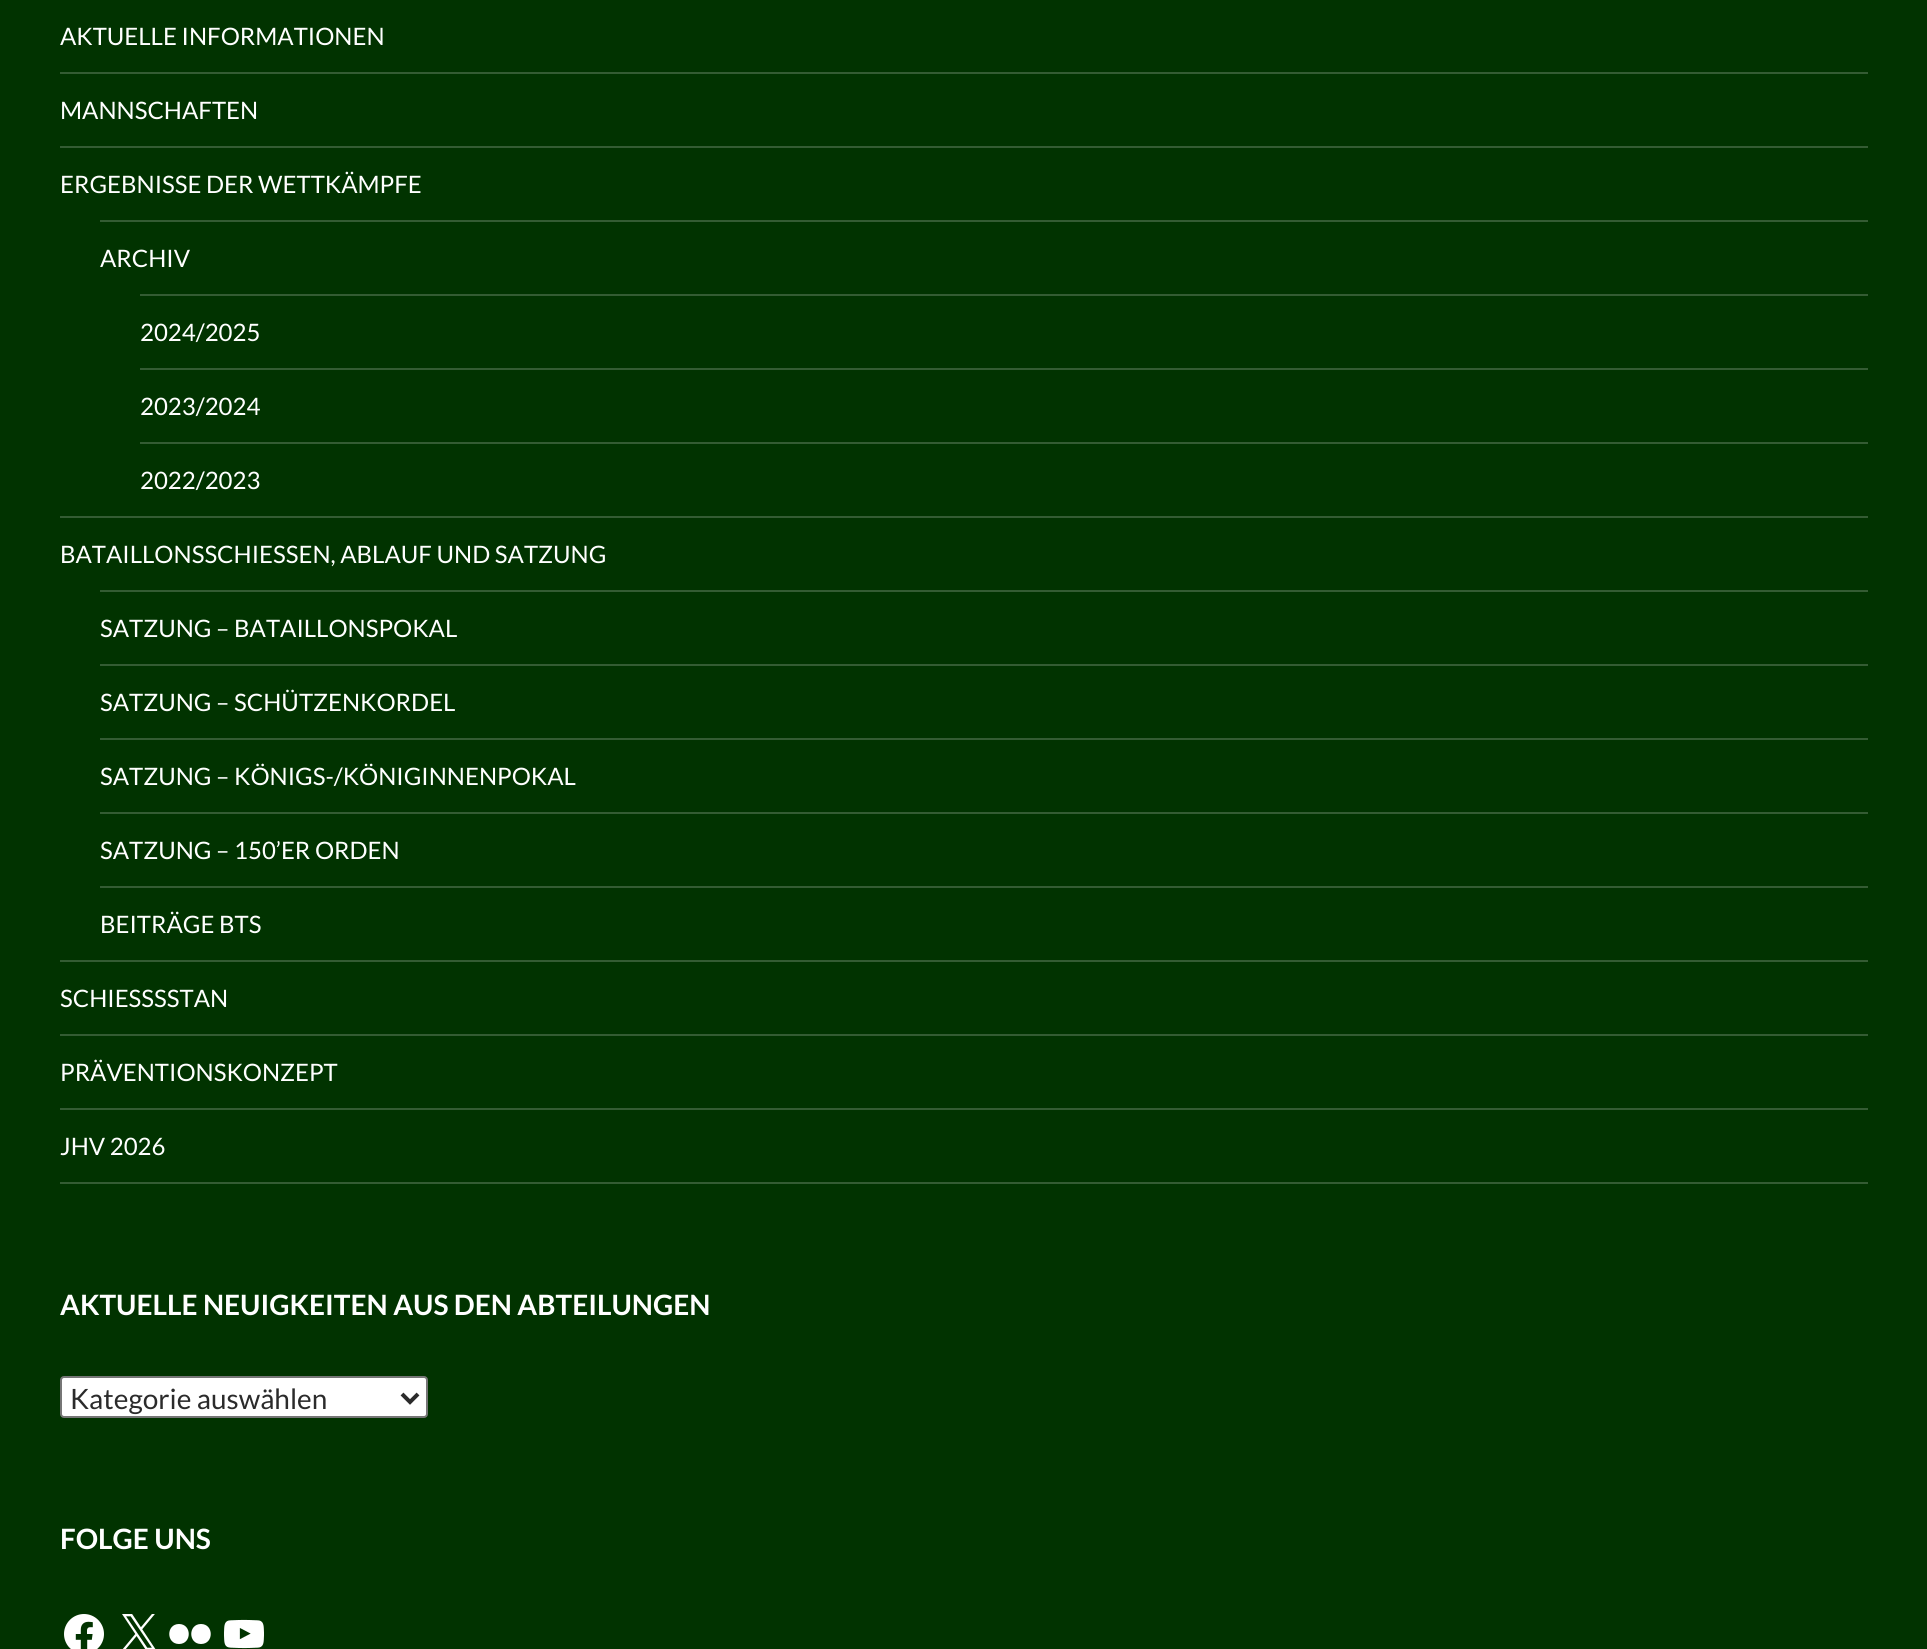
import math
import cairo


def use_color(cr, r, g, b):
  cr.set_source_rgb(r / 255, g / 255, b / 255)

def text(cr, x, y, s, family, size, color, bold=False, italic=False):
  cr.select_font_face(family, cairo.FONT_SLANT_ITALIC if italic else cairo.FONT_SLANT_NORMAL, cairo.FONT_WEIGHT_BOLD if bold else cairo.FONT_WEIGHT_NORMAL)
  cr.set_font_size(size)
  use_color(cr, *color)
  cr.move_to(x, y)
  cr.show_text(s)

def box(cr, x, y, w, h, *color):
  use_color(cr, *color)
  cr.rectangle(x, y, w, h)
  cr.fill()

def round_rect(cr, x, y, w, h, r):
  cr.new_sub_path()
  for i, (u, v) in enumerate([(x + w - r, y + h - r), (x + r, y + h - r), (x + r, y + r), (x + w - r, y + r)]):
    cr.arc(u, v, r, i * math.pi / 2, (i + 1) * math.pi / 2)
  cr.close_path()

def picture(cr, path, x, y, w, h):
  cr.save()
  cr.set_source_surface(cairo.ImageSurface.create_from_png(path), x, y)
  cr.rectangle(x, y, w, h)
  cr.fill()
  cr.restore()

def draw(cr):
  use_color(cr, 1, 51, 0)
  cr.paint()
  box(cr, 60, 1182, 1808, 2, 52, 92, 51)
  box(cr, 60, 72, 1808, 2, 52, 92, 51)
  box(cr, 60, 146, 1808, 2, 52, 92, 51)
  box(cr, 100, 220, 1768, 2, 52, 92, 51)
  box(cr, 140, 294, 1728, 2, 52, 92, 51)
  box(cr, 140, 368, 1728, 2, 52, 92, 51)
  box(cr, 140, 442, 1728, 2, 52, 92, 51)
  box(cr, 60, 516, 1808, 2, 52, 92, 51)
  box(cr, 100, 590, 1768, 2, 52, 92, 51)
  box(cr, 100, 664, 1768, 2, 52, 92, 51)
  box(cr, 100, 738, 1768, 2, 52, 92, 51)
  box(cr, 100, 812, 1768, 2, 52, 92, 51)
  box(cr, 100, 886, 1768, 2, 52, 92, 51)
  box(cr, 60, 960, 1808, 2, 52, 92, 51)
  box(cr, 60, 1034, 1808, 2, 52, 92, 51)
  box(cr, 60, 1108, 1808, 2, 52, 92, 51)
  use_color(cr, 255, 255, 255)
  round_rect(cr, 61, 1377, 366, 40, 3)
  cr.fill_preserve()
  use_color(cr, 118, 118, 118)
  cr.stroke()
  cr.new_path()
  cr.move_to(402, 1394)
  cr.line_to(410, 1402)
  cr.line_to(418, 1394)
  use_color(cr, 43, 43, 43)
  cr.set_line_width(4)
  cr.stroke()
  picture(cr, "img_01.png", 64, 1614, 40, 35)
  picture(cr, "img_02.png", 122, 1614, 34, 35)
  use_color(cr, 255, 255, 255)
  cr.new_path()
  cr.move_to(179, 1624)
  cr.curve_to(166, 1624, 166, 1644, 179, 1644)
  cr.curve_to(192, 1644, 192, 1624, 179, 1624)
  cr.close_path()
  cr.move_to(201, 1624)
  cr.curve_to(188, 1624, 188, 1644, 201, 1644)
  cr.curve_to(214, 1644, 214, 1624, 201, 1624)
  cr.close_path()
  cr.fill()
  picture(cr, "img_03.png", 224, 1619, 40, 30)
  text(cr, 60, 45, "AKTUELLE INFORMATIONEN", "Lato", 24, (255, 255, 255))
  text(cr, 60, 119, "MANNSCHAFTEN", "Lato", 24, (255, 255, 255))
  text(cr, 60, 193, "ERGEBNISSE DER WETTKÄMPFE", "Lato", 24, (255, 255, 255))
  text(cr, 100, 267, "ARCHIV", "Lato", 24, (255, 255, 255))
  text(cr, 140, 341, "2024/2025", "Lato", 24, (255, 255, 255))
  text(cr, 140, 415, "2023/2024", "Lato", 24, (255, 255, 255))
  text(cr, 140, 489, "2022/2023", "Lato", 24, (255, 255, 255))
  text(cr, 60, 563, "BATAILLONSSCHIESSEN, ABLAUF UND SATZUNG", "Lato", 24, (255, 255, 255))
  text(cr, 100, 637, "SATZUNG – BATAILLONSPOKAL", "Lato", 24, (255, 255, 255))
  text(cr, 100, 711, "SATZUNG – SCHÜTZENKORDEL", "Lato", 24, (255, 255, 255))
  text(cr, 100, 785, "SATZUNG – KÖNIGS-/KÖNIGINNENPOKAL", "Lato", 24, (255, 255, 255))
  text(cr, 100, 859, "SATZUNG – 150’ER ORDEN", "Lato", 24, (255, 255, 255))
  text(cr, 100, 933, "BEITRÄGE BTS", "Lato", 24, (255, 255, 255))
  text(cr, 60, 1007, "SCHIESSSSTAN", "Lato", 24, (255, 255, 255))
  text(cr, 60, 1081, "PRÄVENTIONSKONZEPT", "Lato", 24, (255, 255, 255))
  text(cr, 60, 1155, "JHV 2026", "Lato", 24, (255, 255, 255))
  text(cr, 60, 1315, "AKTUELLE NEUIGKEITEN AUS DEN ABTEILUNGEN", "Lato", 28, (255, 255, 255), bold=True)
  text(cr, 70, 1409, "Kategorie auswählen", "Lato", 28, (43, 43, 43))
  text(cr, 60, 1549, "FOLGE UNS", "Lato", 28, (255, 255, 255), bold=True)


surface = cairo.ImageSurface(cairo.FORMAT_RGB24, 1927, 1649)
cr = cairo.Context(surface)
options = cairo.FontOptions()
options.set_hint_metrics(cairo.HINT_METRICS_OFF)
options.set_hint_style(cairo.HINT_STYLE_NONE)
cr.set_font_options(options)
cr.set_miter_limit(4)
draw(cr)
surface.write_to_png("out.png")
